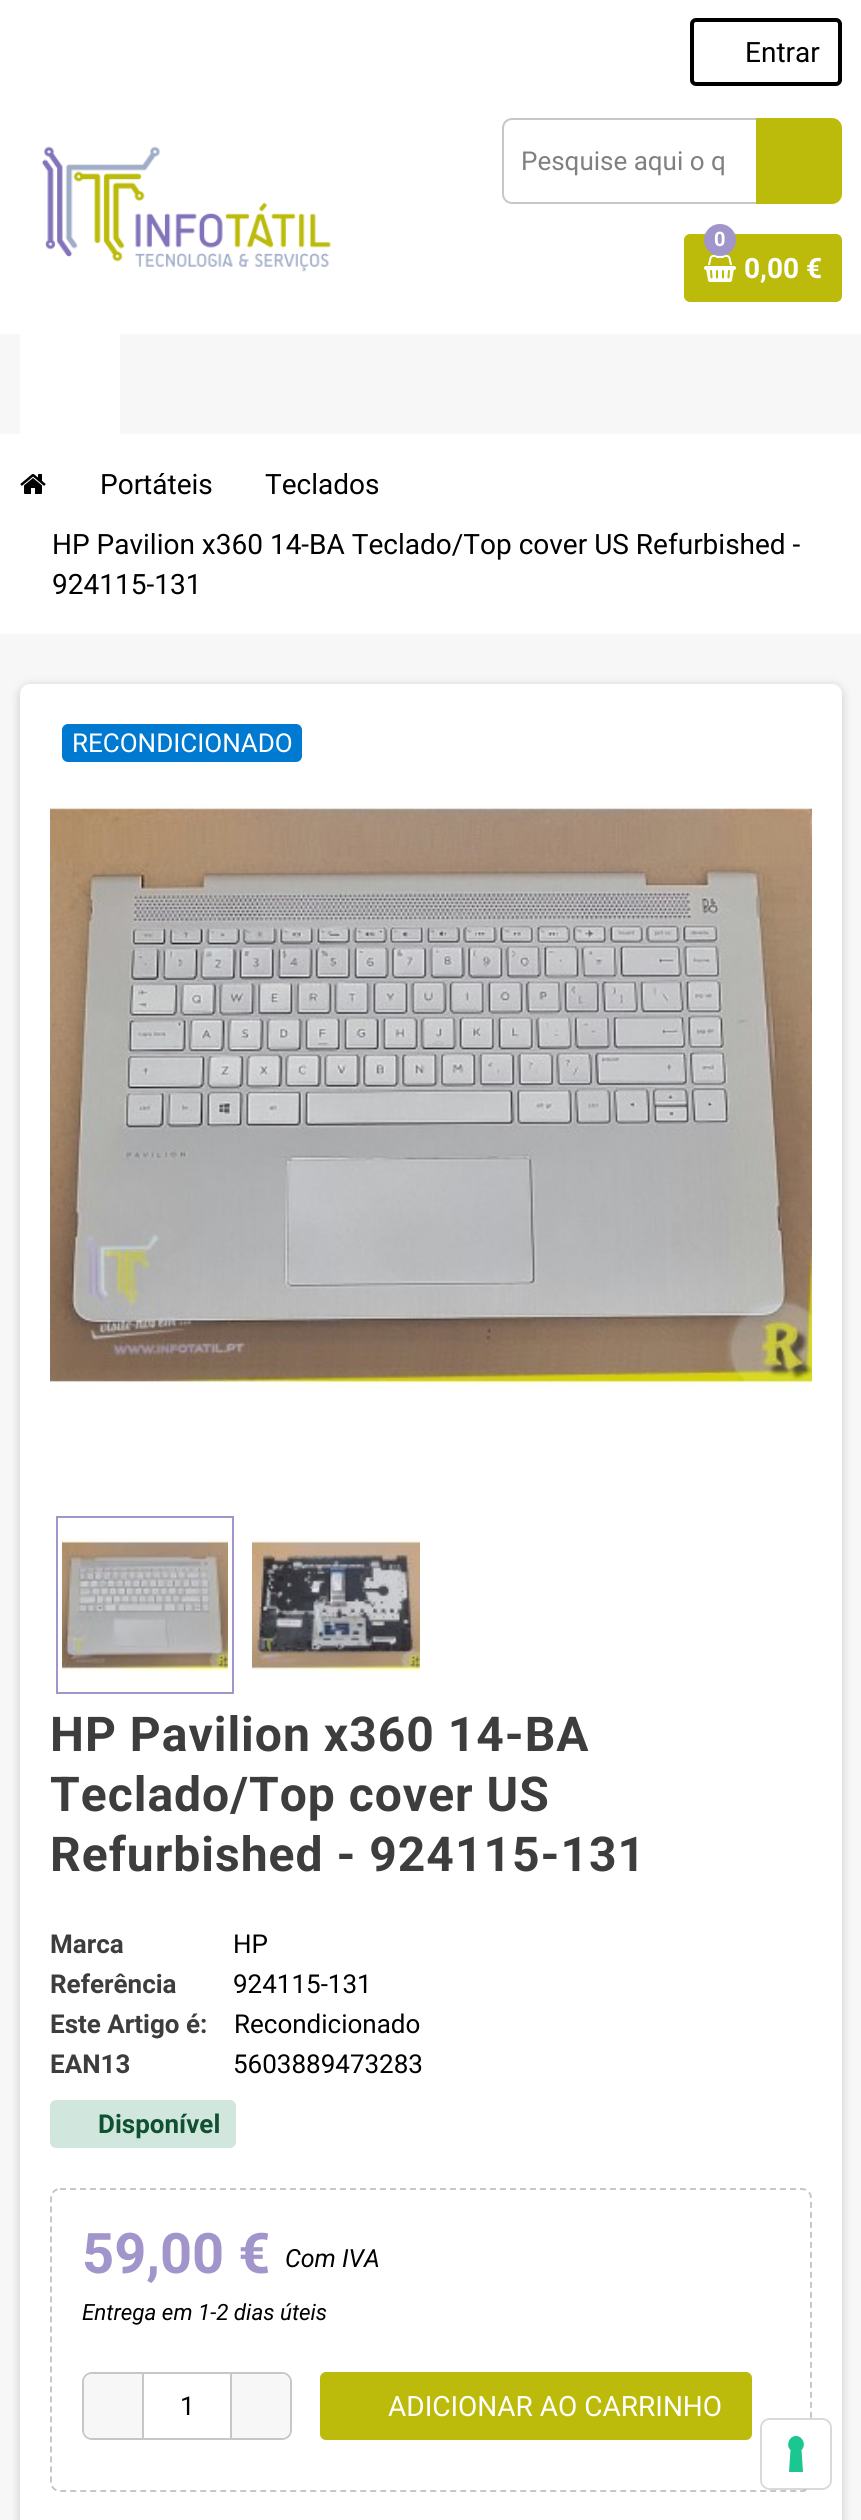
import math
import cairo


def use_color(cr, r, g, b):
  cr.set_source_rgb(r / 255, g / 255, b / 255)

def text(cr, x, y, s, family, size, color, bold=False, italic=False):
  cr.select_font_face(family, cairo.FONT_SLANT_ITALIC if italic else cairo.FONT_SLANT_NORMAL, cairo.FONT_WEIGHT_BOLD if bold else cairo.FONT_WEIGHT_NORMAL)
  cr.set_font_size(size)
  use_color(cr, *color)
  cr.move_to(x, y)
  cr.show_text(s)

def spaced_text(cr, x, y, s, letter, word):
  cr.move_to(x, y)
  for ch in s:
    cr.show_text(ch)
    cr.rel_move_to(letter + word * (ch == ' '), 0)

def box(cr, x, y, w, h, *color):
  use_color(cr, *color)
  cr.rectangle(x, y, w, h)
  cr.fill()

def round_rect(cr, x, y, w, h, r):
  cr.new_sub_path()
  for i, (u, v) in enumerate([(x + w - r, y + h - r), (x + r, y + h - r), (x + r, y + r), (x + w - r, y + r)]):
    cr.arc(u, v, r, i * math.pi / 2, (i + 1) * math.pi / 2)
  cr.close_path()

def shadow(cr, x, y, w, h, r, blur, alpha):
  cr.push_group_with_content(cairo.CONTENT_ALPHA)
  cr.set_operator(cairo.OPERATOR_SOURCE)
  for i in range(15, -16, -2):
    e = blur * i / 6
    if min(w, h) + 2 * e > 0:
      cr.set_source_rgba(0, 0, 0, alpha * math.erfc((i - 1) / 8.5) / 2)
      round_rect(cr, x - e, y - e, w + 2 * e, h + 2 * e, max(0, min(r + e + blur * .6, min(w, h) / 2 + e)))
      cr.fill()
  cr.mask(cr.pop_group())

def picture(cr, path, x, y, w, h):
  cr.save()
  cr.set_source_surface(cairo.ImageSurface.create_from_png(path), x, y)
  cr.rectangle(x, y, w, h)
  cr.fill()
  cr.restore()

def draw(cr):
  use_color(cr, 255, 255, 255)
  cr.paint()
  round_rect(cr, 692, 20, 148, 64, 4)
  use_color(cr, 0, 0, 0)
  cr.set_line_width(4)
  cr.stroke()
  picture(cr, "img_01.png", 41, 146, 290, 126)
  round_rect(cr, 503, 119, 336, 84, 9)
  use_color(cr, 199, 199, 199)
  cr.set_line_width(2)
  cr.stroke()
  use_color(cr, 188, 187, 11)
  cr.new_path()
  cr.move_to(756, 118)
  cr.line_to(832, 118)
  cr.curve_to(837.5, 118, 842, 122.5, 842, 128)
  cr.line_to(842, 194)
  cr.curve_to(842, 199.5, 837.5, 204, 832, 204)
  cr.line_to(756, 204)
  cr.close_path()
  cr.fill()
  round_rect(cr, 684, 234, 158, 68, 6)
  cr.fill()
  picture(cr, "img_02.png", 704, 255, 32, 27)
  use_color(cr, 161, 149, 204)
  cr.arc(720, 240, 16, 0, 2 * math.pi)
  cr.fill()
  box(cr, 0, 334, 861, 100, 247, 247, 247)
  box(cr, 20, 334, 100, 100, 255, 255, 255)
  box(cr, 0, 634, 861, 1886, 247, 247, 247)
  picture(cr, "img_03.png", 20, 474, 26, 20)
  use_color(cr, 0, 0, 0)
  shadow(cr, 20, 686, 822, 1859, 10, 5, 0.2)
  use_color(cr, 255, 255, 255)
  round_rect(cr, 20, 684, 822, 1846, 10)
  cr.fill()
  use_color(cr, 0, 122, 209)
  round_rect(cr, 62, 724, 240, 38, 6)
  cr.fill()
  picture(cr, "img_04.png", 50, 805, 762, 586)
  cr.rectangle(57, 1517, 176, 176)
  use_color(cr, 161, 149, 204)
  cr.stroke()
  picture(cr, "img_05.png", 62, 1538, 166, 134)
  picture(cr, "img_06.png", 252, 1538, 168, 134)
  use_color(cr, 209, 231, 221)
  round_rect(cr, 50, 2100, 186, 48, 6)
  cr.fill()
  cr.new_path()
  cr.move_to(60, 2189)
  cr.line_to(802, 2189)
  cr.curve_to(807, 2189, 811, 2193, 811, 2198)
  cr.line_to(811, 2482)
  cr.curve_to(811, 2487, 807, 2491, 802, 2491)
  cr.line_to(60, 2491)
  cr.curve_to(55, 2491, 51, 2487, 51, 2482)
  cr.line_to(51, 2198)
  cr.curve_to(51, 2193, 55, 2189, 60, 2189)
  cr.close_path()
  use_color(cr, 199, 199, 199)
  cr.set_dash([6, 4])
  cr.stroke()
  round_rect(cr, 83, 2373, 208, 66, 9)
  cr.set_dash([])
  cr.stroke()
  use_color(cr, 247, 247, 247)
  cr.new_path()
  cr.move_to(92, 2374)
  cr.line_to(144, 2374)
  cr.line_to(144, 2438)
  cr.line_to(92, 2438)
  cr.curve_to(87.5, 2438, 84, 2434.5, 84, 2430)
  cr.line_to(84, 2382)
  cr.curve_to(84, 2377.5, 87.5, 2374, 92, 2374)
  cr.close_path()
  cr.fill()
  cr.new_path()
  cr.move_to(230, 2374)
  cr.line_to(282, 2374)
  cr.curve_to(286.5, 2374, 290, 2377.5, 290, 2382)
  cr.line_to(290, 2430)
  cr.curve_to(290, 2434.5, 286.5, 2438, 282, 2438)
  cr.line_to(230, 2438)
  cr.close_path()
  cr.fill()
  box(cr, 230, 2374, 2, 64, 199, 199, 199)
  box(cr, 142, 2374, 2, 64, 199, 199, 199)
  use_color(cr, 188, 187, 11)
  round_rect(cr, 320, 2372, 432, 68, 6)
  cr.fill()
  round_rect(cr, 761, 2419, 70, 70, 9)
  cr.set_source_rgba(0, 0, 0, 0.15)
  cr.stroke()
  use_color(cr, 255, 255, 255)
  round_rect(cr, 762, 2420, 68, 68, 8)
  cr.fill()
  use_color(cr, 28, 198, 145)
  cr.set_fill_rule(cairo.FILL_RULE_EVEN_ODD)
  cr.new_path()
  cr.move_to(796, 2436)
  cr.curve_to(803, 2436, 806.5, 2445.5, 801.5, 2450)
  cr.line_to(803, 2472)
  cr.line_to(789, 2472)
  cr.line_to(790.5, 2450)
  cr.curve_to(785.5, 2445.5, 789, 2436, 796, 2436)
  cr.close_path()
  cr.fill()
  text(cr, 745, 62, "Entrar", "Roboto", 28, (0, 0, 0))
  text(cr, 521, 170, "Pesquise aqui o q", "Roboto", 26, (128, 128, 128))
  text(cr, 714, 246, "0", "Roboto", 20, (255, 255, 255), bold=True)
  text(cr, 744, 278, "0,00 €", "Roboto", 28, (255, 255, 255), bold=True)
  text(cr, 100, 494, "Portáteis", "Roboto", 28, (0, 0, 0))
  text(cr, 265, 494, "Teclados", "Roboto", 28, (0, 0, 0))
  text(cr, 52, 554, "HP Pavilion x360 14-BA Teclado/Top cover US Refurbished -", "Roboto", 28, (0, 0, 0))
  text(cr, 52, 594, "924115-131", "Roboto", 28, (0, 0, 0))
  text(cr, 72, 752, "RECONDICIONADO", "Roboto", 26, (255, 255, 255))
  cr.select_font_face("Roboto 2", cairo.FONT_SLANT_NORMAL, cairo.FONT_WEIGHT_BOLD)
  cr.set_font_size(48)
  use_color(cr, 61, 61, 61)
  spaced_text(cr, 50, 1751, "HP Pavilion x360 14-BA", 1, 0)
  spaced_text(cr, 50, 1811, "Teclado/Top cover US", 1, 0)
  spaced_text(cr, 50, 1871, "Refurbished - 924115-131", 1, 0)
  text(cr, 50, 1953, "Marca", "Roboto", 26, (61, 61, 61), bold=True)
  text(cr, 233, 1953, "HP", "Roboto", 26, (0, 0, 0))
  text(cr, 50, 1993, "Referência", "Roboto", 26, (61, 61, 61), bold=True)
  text(cr, 233, 1993, "924115-131", "Roboto", 26, (0, 0, 0))
  text(cr, 50, 2033, "Este Artigo é:", "Roboto", 26, (61, 61, 61), bold=True)
  text(cr, 234, 2033, "Recondicionado", "Roboto", 26, (0, 0, 0))
  text(cr, 50, 2073, "EAN13", "Roboto", 26, (61, 61, 61), bold=True)
  text(cr, 233, 2073, "5603889473283", "Roboto", 26, (0, 0, 0))
  text(cr, 98, 2133, "Disponível", "Roboto", 26, (15, 81, 50), bold=True)
  text(cr, 82, 2273, "59,00 €", "Roboto", 56, (161, 149, 204), bold=True)
  text(cr, 285, 2267, "Com IVA", "Roboto", 25, (0, 0, 0), italic=True)
  text(cr, 82, 2320, "Entrega em 1-2 dias úteis", "Roboto", 22.4, (0, 0, 0), italic=True)
  text(cr, 180, 2415, "1", "Roboto", 26, (0, 0, 0))
  text(cr, 388, 2416, "ADICIONAR AO CARRINHO", "Roboto", 28, (255, 255, 255))


surface = cairo.ImageSurface(cairo.FORMAT_RGB24, 861, 2520)
cr = cairo.Context(surface)
options = cairo.FontOptions()
options.set_hint_metrics(cairo.HINT_METRICS_OFF)
options.set_hint_style(cairo.HINT_STYLE_NONE)
cr.set_font_options(options)
cr.set_miter_limit(4)
draw(cr)
surface.write_to_png("out.png")
